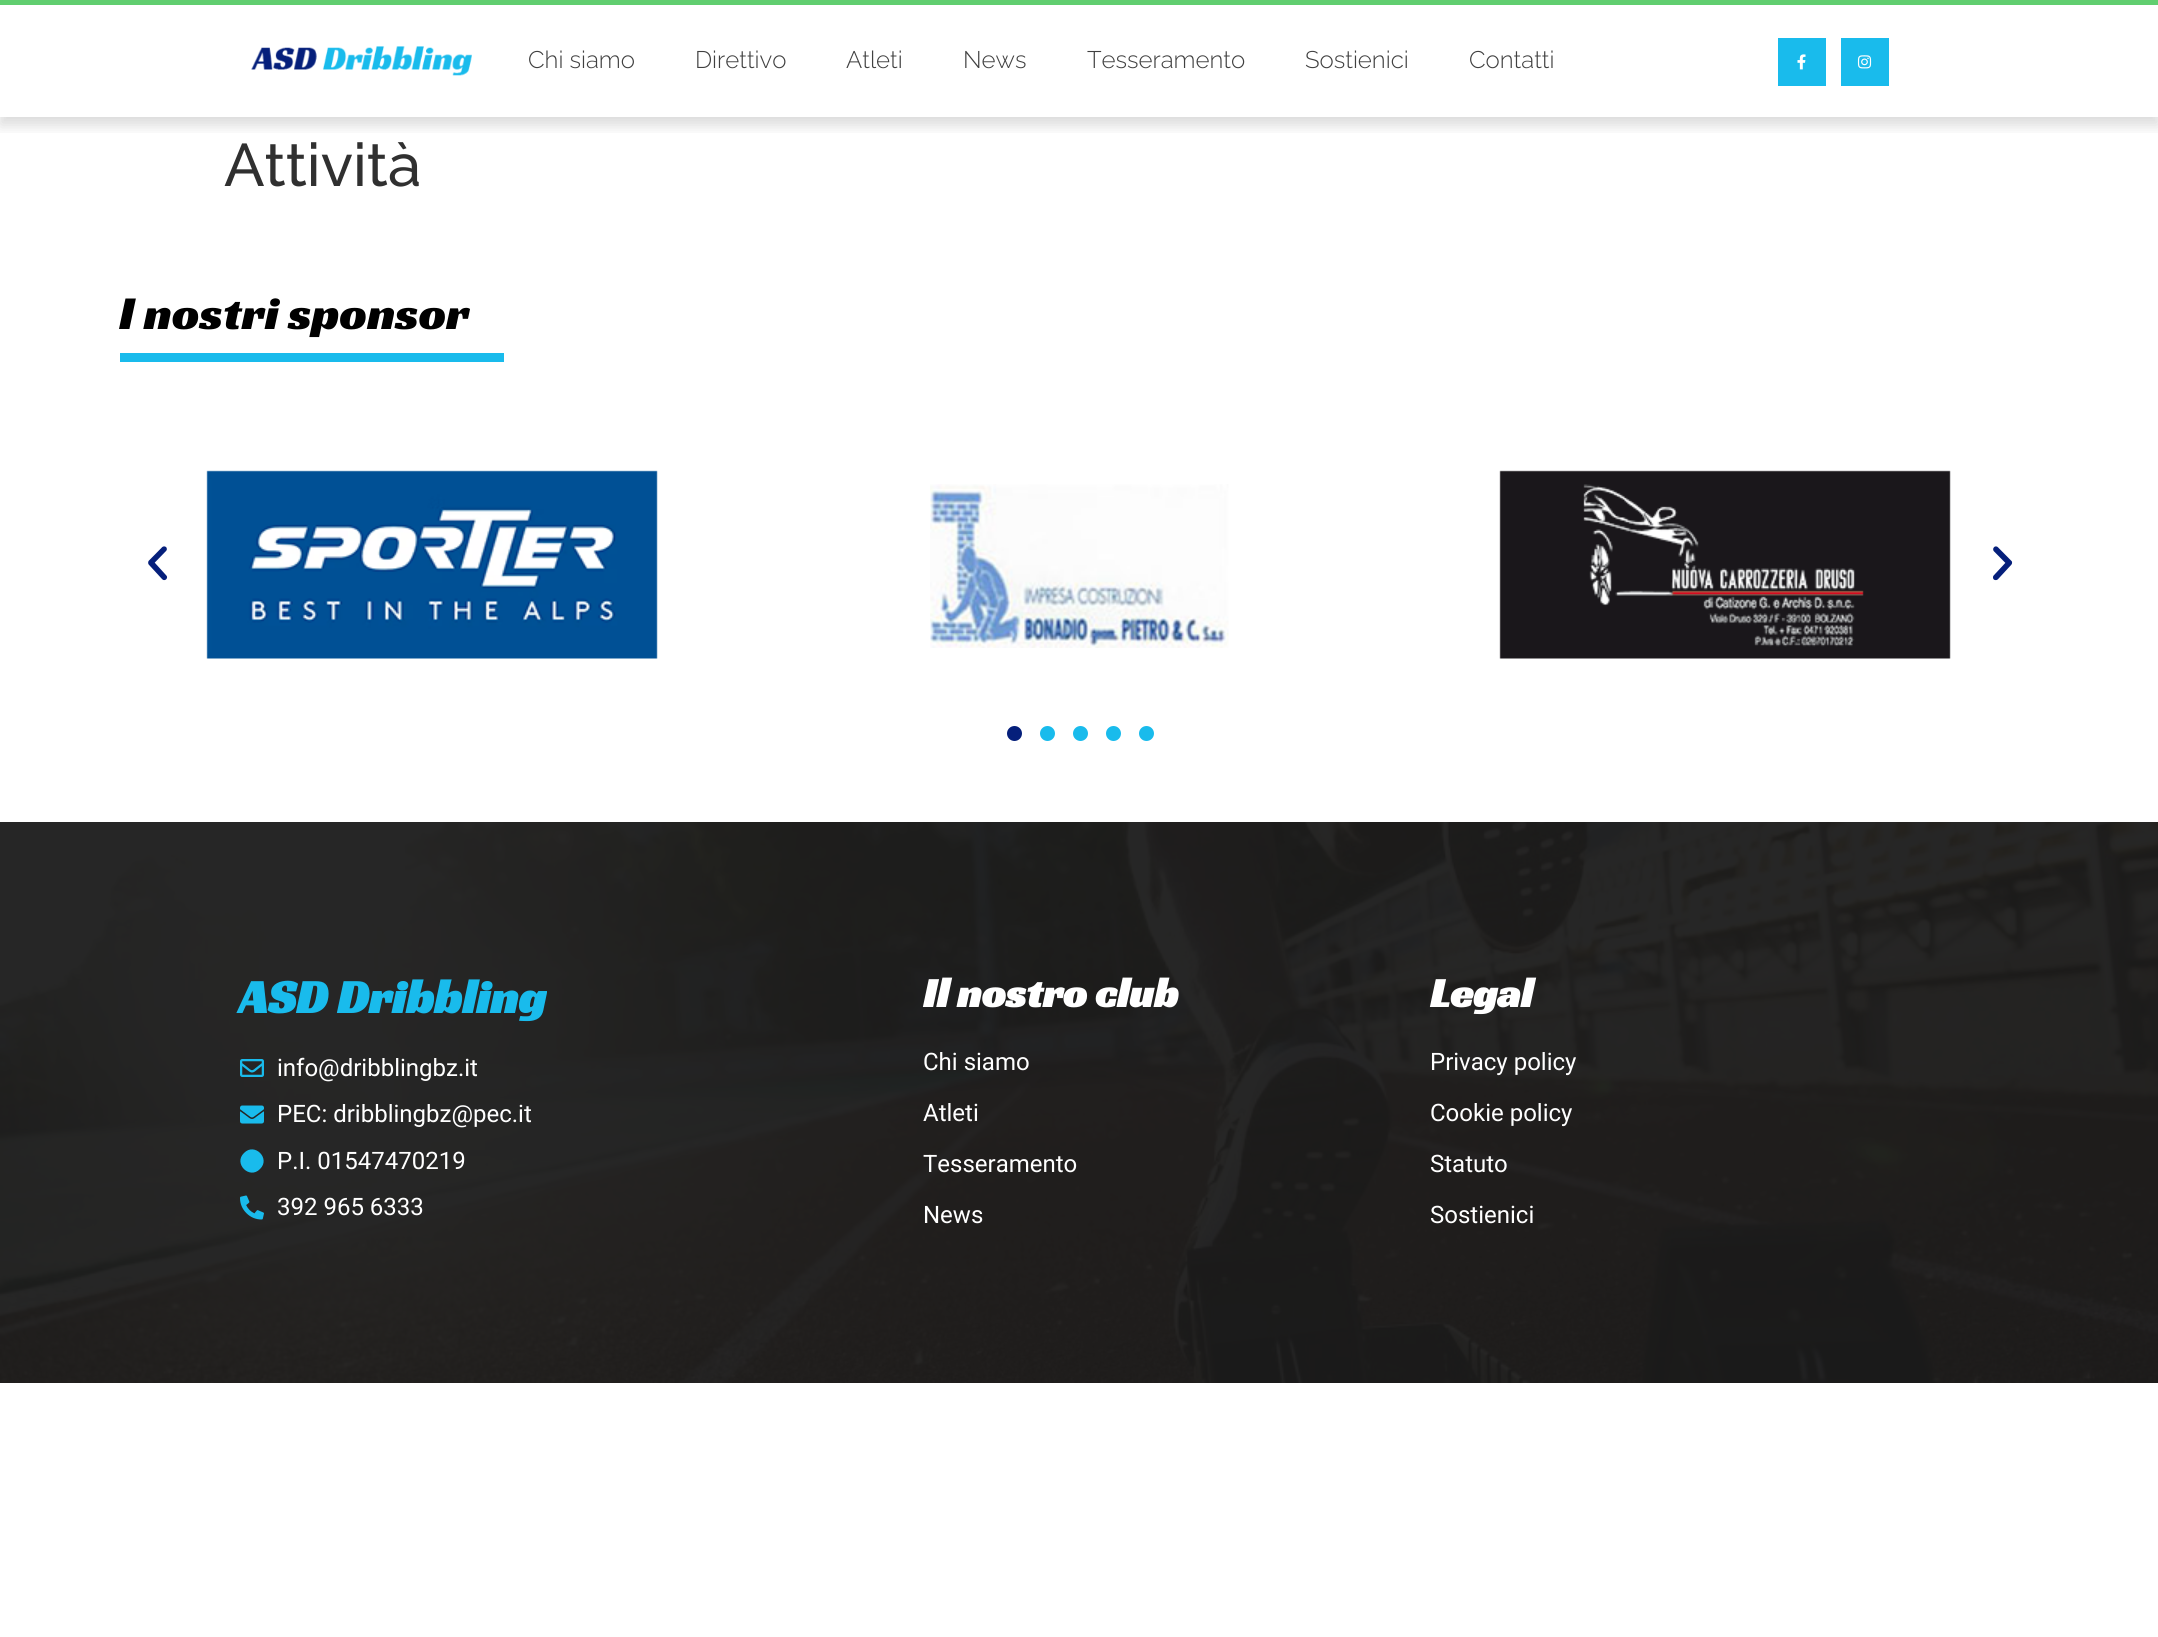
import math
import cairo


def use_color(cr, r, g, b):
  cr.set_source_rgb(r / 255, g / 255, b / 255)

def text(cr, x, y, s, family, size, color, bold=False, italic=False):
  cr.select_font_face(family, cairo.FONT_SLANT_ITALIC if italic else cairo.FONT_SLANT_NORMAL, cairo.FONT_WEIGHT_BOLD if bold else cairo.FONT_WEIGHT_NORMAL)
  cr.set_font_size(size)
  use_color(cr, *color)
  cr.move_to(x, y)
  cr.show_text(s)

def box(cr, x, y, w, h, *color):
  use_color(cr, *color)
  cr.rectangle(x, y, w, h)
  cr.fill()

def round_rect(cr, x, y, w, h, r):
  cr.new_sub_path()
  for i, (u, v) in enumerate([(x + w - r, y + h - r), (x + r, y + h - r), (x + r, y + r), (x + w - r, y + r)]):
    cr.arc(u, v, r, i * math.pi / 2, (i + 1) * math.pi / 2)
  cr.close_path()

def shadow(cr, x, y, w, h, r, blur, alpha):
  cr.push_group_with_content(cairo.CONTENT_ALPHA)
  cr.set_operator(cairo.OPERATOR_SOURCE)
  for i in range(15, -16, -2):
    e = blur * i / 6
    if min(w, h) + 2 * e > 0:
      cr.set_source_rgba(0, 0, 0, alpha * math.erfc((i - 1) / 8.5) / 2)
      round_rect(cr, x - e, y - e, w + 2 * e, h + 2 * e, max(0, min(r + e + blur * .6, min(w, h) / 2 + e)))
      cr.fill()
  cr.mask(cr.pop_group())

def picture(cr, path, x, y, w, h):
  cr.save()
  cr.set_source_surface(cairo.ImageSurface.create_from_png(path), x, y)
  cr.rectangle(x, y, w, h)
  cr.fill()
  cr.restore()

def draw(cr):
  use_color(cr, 255, 255, 255)
  cr.paint()
  cr.save()
  cr.rectangle(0, 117, 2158, 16)
  cr.clip()
  use_color(cr, 0, 0, 0)
  shadow(cr, 0, 8, 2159, 117, 0, 7.5, 0.15)
  cr.restore()
  box(cr, 0, 0, 2158, 5, 97, 206, 112)
  picture(cr, "img_01.png", 251, 46, 221, 30)
  box(cr, 1778, 38, 48, 48, 25, 187, 236)
  picture(cr, "img_02.png", 1797, 54, 9, 16)
  box(cr, 1841, 38, 48, 48, 25, 187, 236)
  picture(cr, "img_03.png", 1857, 55, 15, 14)
  box(cr, 120, 353, 384, 9, 25, 187, 236)
  picture(cr, "img_04.png", 148, 546, 20, 35)
  picture(cr, "img_05.png", 206, 470, 452, 189)
  picture(cr, "img_06.png", 930, 484, 299, 164)
  picture(cr, "img_07.png", 1499, 470, 452, 189)
  picture(cr, "img_08.png", 1993, 546, 20, 35)
  use_color(cr, 5, 31, 123)
  cr.arc(1014.5, 733.5, 7.5, 0, 2 * math.pi)
  cr.fill()
  use_color(cr, 25, 187, 236)
  cr.arc(1047.5, 733.5, 7.5, 0, 2 * math.pi)
  cr.fill()
  cr.arc(1080.5, 733.5, 7.5, 0, 2 * math.pi)
  cr.fill()
  cr.arc(1113.5, 733.5, 7.5, 0, 2 * math.pi)
  cr.fill()
  cr.arc(1146.5, 733.5, 7.5, 0, 2 * math.pi)
  cr.fill()
  picture(cr, "img_09.png", 0, 822, 2158, 561)
  picture(cr, "img_10.png", 240, 1059, 24, 18)
  picture(cr, "img_11.png", 240, 1105, 24, 19)
  cr.new_path()
  cr.move_to(244, 1153)
  cr.curve_to(254.5, 1142, 271, 1158.5, 260, 1169)
  cr.curve_to(249.5, 1180, 233, 1163.5, 244, 1153)
  cr.close_path()
  cr.fill()
  picture(cr, "img_12.png", 240, 1195, 24, 25)
  text(cr, 528, 68, "Chi siamo", "Raleway Light", 24, (64, 64, 64))
  text(cr, 695, 68, "Direttivo", "Raleway Light", 24, (64, 64, 64))
  text(cr, 846, 68, "Atleti", "Raleway Light", 24, (64, 64, 64))
  text(cr, 963, 68, "News", "Raleway Light", 24, (64, 64, 64))
  text(cr, 1087, 68, "Tesseramento", "Raleway Light", 24, (64, 64, 64))
  text(cr, 1305, 68, "Sostienici", "Raleway Light", 24, (64, 64, 64))
  text(cr, 1469, 68, "Contatti", "Raleway Light", 24, (64, 64, 64))
  text(cr, 224, 186, "Attività", "Raleway Medium", 60, (48, 48, 48))
  text(cr, 119, 329, "I nostri sponsor", "Racing Sans One", 48, (0, 0, 0))
  text(cr, 239, 1013, "ASD Dribbling", "Racing Sans One", 48, (25, 187, 236), bold=True)
  text(cr, 277, 1076, "info@dribblingbz.it", "Roboto", 24, (255, 255, 255))
  text(cr, 277, 1122, "PEC: dribblingbz@pec.it", "Roboto", 24, (255, 255, 255))
  text(cr, 277, 1169, "P.I. 01547470219", "Roboto", 24, (255, 255, 255))
  text(cr, 277, 1215, "392 965 6333", "Roboto", 24, (255, 255, 255))
  text(cr, 923, 1007, "Il nostro club", "Racing Sans One", 42, (255, 255, 255), bold=True)
  text(cr, 923, 1070, "Chi siamo", "Roboto", 24, (255, 255, 255))
  text(cr, 923, 1121, "Atleti", "Roboto", 24, (255, 255, 255))
  text(cr, 923, 1172, "Tesseramento", "Roboto", 24, (255, 255, 255))
  text(cr, 923, 1223, "News", "Roboto", 24, (255, 255, 255))
  text(cr, 1430, 1007, "Legal", "Racing Sans One", 42, (255, 255, 255), bold=True)
  text(cr, 1430, 1070, "Privacy policy", "Roboto", 24, (255, 255, 255))
  text(cr, 1430, 1121, "Cookie policy", "Roboto", 24, (255, 255, 255))
  text(cr, 1430, 1172, "Statuto", "Roboto", 24, (255, 255, 255))
  text(cr, 1430, 1223, "Sostienici", "Roboto", 24, (255, 255, 255))


surface = cairo.ImageSurface(cairo.FORMAT_RGB24, 2158, 1637)
cr = cairo.Context(surface)
options = cairo.FontOptions()
options.set_hint_metrics(cairo.HINT_METRICS_OFF)
options.set_hint_style(cairo.HINT_STYLE_NONE)
cr.set_font_options(options)
cr.set_miter_limit(4)
draw(cr)
surface.write_to_png("out.png")
